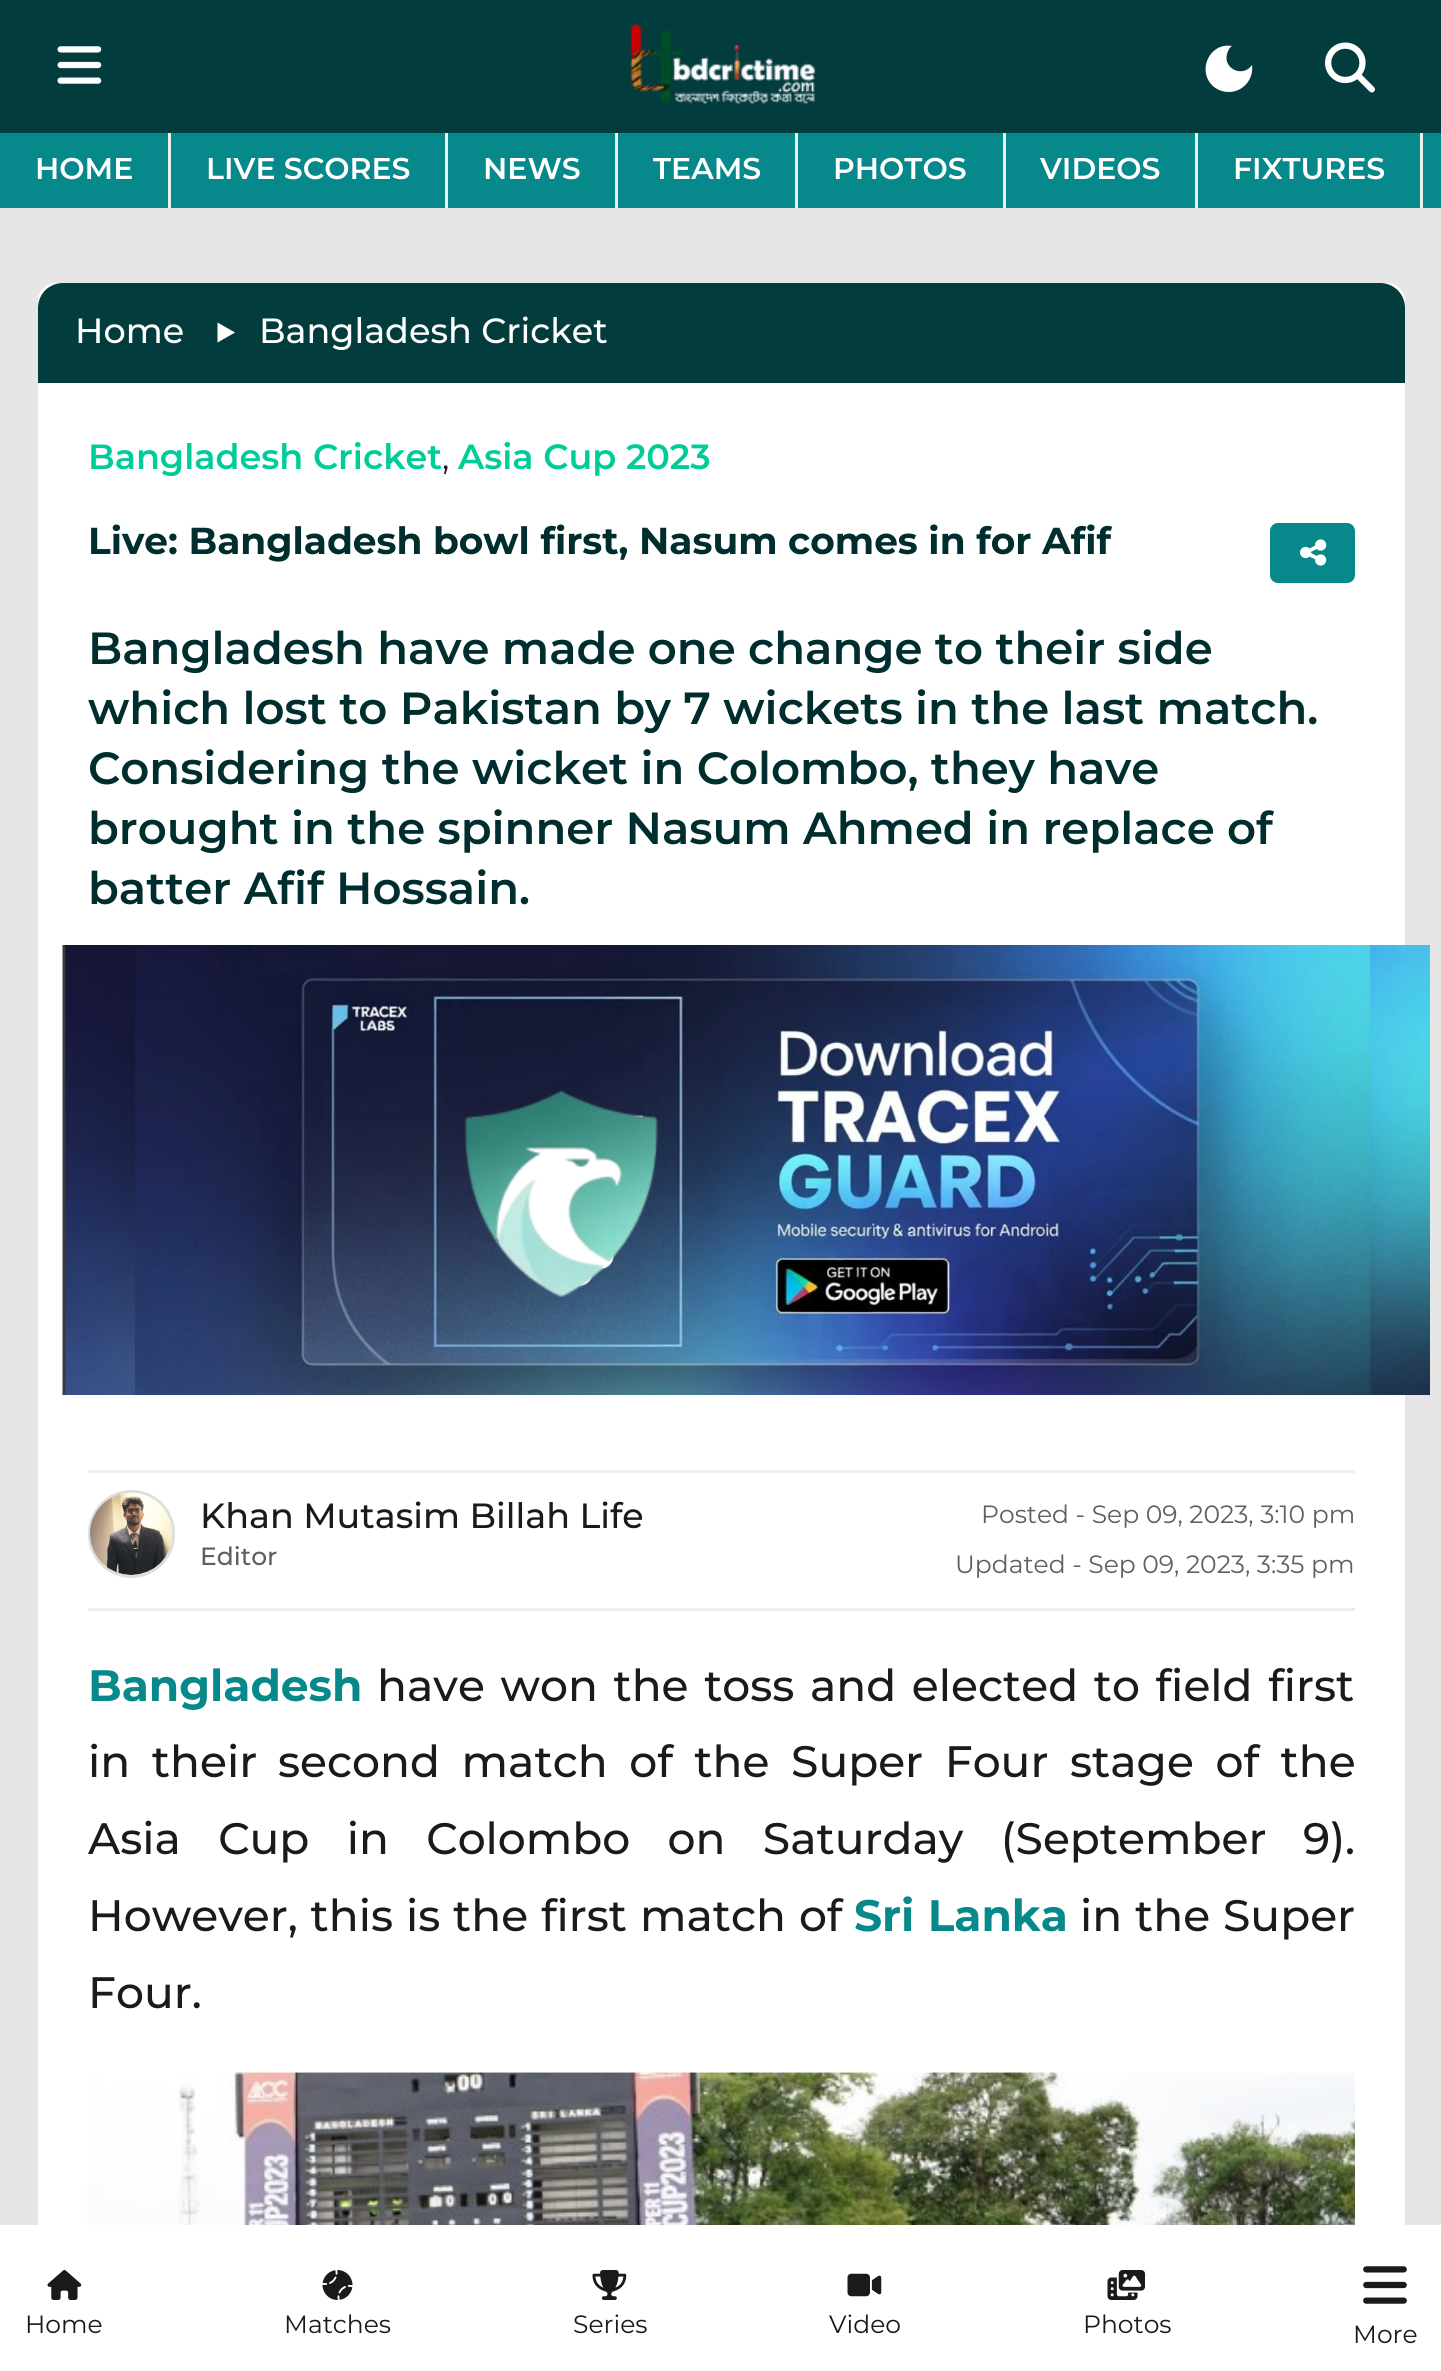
import math
import cairo


def use_color(cr, r, g, b):
  cr.set_source_rgb(r / 255, g / 255, b / 255)

def text(cr, x, y, s, family, size, color, bold=False, italic=False):
  cr.select_font_face(family, cairo.FONT_SLANT_ITALIC if italic else cairo.FONT_SLANT_NORMAL, cairo.FONT_WEIGHT_BOLD if bold else cairo.FONT_WEIGHT_NORMAL)
  cr.set_font_size(size)
  use_color(cr, *color)
  cr.move_to(x, y)
  cr.show_text(s)

def spaced_text(cr, x, y, s, letter, word):
  cr.move_to(x, y)
  for ch in s:
    cr.show_text(ch)
    cr.rel_move_to(letter + word * (ch == ' '), 0)

def box(cr, x, y, w, h, *color):
  use_color(cr, *color)
  cr.rectangle(x, y, w, h)
  cr.fill()

def round_rect(cr, x, y, w, h, r):
  cr.new_sub_path()
  for i, (u, v) in enumerate([(x + w - r, y + h - r), (x + r, y + h - r), (x + r, y + r), (x + w - r, y + r)]):
    cr.arc(u, v, r, i * math.pi / 2, (i + 1) * math.pi / 2)
  cr.close_path()

def picture(cr, path, x, y, w, h):
  cr.save()
  cr.set_source_surface(cairo.ImageSurface.create_from_png(path), x, y)
  cr.rectangle(x, y, w, h)
  cr.fill()
  cr.restore()

def draw(cr):
  use_color(cr, 230, 230, 230)
  cr.paint()
  box(cr, 0, 0, 1441, 133, 3, 60, 61)
  picture(cr, "img_01.png", 57, 46, 45, 38)
  picture(cr, "img_02.png", 630, 23, 186, 82)
  use_color(cr, 255, 255, 255)
  cr.new_path()
  cr.move_to(1229, 92)
  cr.curve_to(1223, 92, 1218, 90, 1214, 87)
  cr.curve_to(1196, 72, 1209, 42, 1232, 46)
  cr.curve_to(1230, 47, 1228, 50, 1227, 54)
  cr.curve_to(1223, 69, 1243, 78, 1252, 65)
  cr.curve_to(1254, 79, 1243, 92, 1229, 92)
  cr.fill()
  picture(cr, "img_03.png", 1325, 42, 50, 51)
  box(cr, 0, 133, 1441, 75, 7, 136, 138)
  box(cr, 168, 133, 3, 75, 237, 238, 240)
  box(cr, 445, 133, 3, 75, 237, 238, 240)
  box(cr, 615, 133, 3, 75, 237, 238, 240)
  box(cr, 795, 133, 3, 75, 237, 238, 240)
  box(cr, 1003, 133, 3, 75, 237, 238, 240)
  box(cr, 1195, 133, 3, 75, 237, 238, 240)
  box(cr, 1420, 133, 3, 75, 237, 238, 240)
  use_color(cr, 255, 255, 255)
  round_rect(cr, 38, 283, 1367, 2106, 18)
  cr.fill()
  use_color(cr, 3, 60, 61)
  cr.new_path()
  cr.move_to(63, 283)
  cr.line_to(1380, 283)
  cr.curve_to(1394, 283, 1405, 294, 1405, 308)
  cr.line_to(1405, 383)
  cr.line_to(38, 383)
  cr.line_to(38, 308)
  cr.curve_to(38, 294, 49, 283, 63, 283)
  cr.close_path()
  cr.fill()
  use_color(cr, 255, 255, 255)
  cr.new_path()
  cr.move_to(217.5, 342.5)
  cr.line_to(217.5, 322.5)
  cr.line_to(235, 332.5)
  cr.close_path()
  cr.fill()
  use_color(cr, 7, 136, 138)
  round_rect(cr, 1270, 523, 85, 60, 8)
  cr.fill()
  picture(cr, "img_04.png", 1300, 539, 27, 27)
  picture(cr, "img_05.png", 62, 945, 1368, 450)
  box(cr, 88, 1470, 1267, 3, 237, 238, 240)
  box(cr, 88, 1608, 1267, 3, 237, 238, 240)
  round_rect(cr, 89.5, 1491.5, 84, 85, 42)
  use_color(cr, 221, 221, 221)
  cr.set_line_width(3)
  cr.stroke()
  picture(cr, "img_06.png", 90, 1492, 83, 83)
  picture(cr, "img_07.png", 87, 2072, 1268, 153)
  picture(cr, "img_08.png", 87, 2072, 970, 153)
  box(cr, 0, 2225, 1441, 146, 255, 255, 255)
  picture(cr, "img_09.png", 47, 2270, 35, 30)
  picture(cr, "img_10.png", 322, 2270, 31, 30)
  picture(cr, "img_11.png", 592, 2270, 35, 30)
  picture(cr, "img_12.png", 847, 2273, 35, 24)
  picture(cr, "img_13.png", 1107, 2270, 38, 30)
  picture(cr, "img_14.png", 1363, 2266, 44, 38)
  text(cr, 35, 179, "HOME", "Montserrat SemiBold", 30, (255, 255, 255))
  text(cr, 206, 179, "LIVE SCORES", "Montserrat SemiBold", 30, (255, 255, 255))
  text(cr, 483, 179, "NEWS", "Montserrat SemiBold", 30, (255, 255, 255))
  text(cr, 653, 179, "TEAMS", "Montserrat SemiBold", 30, (255, 255, 255))
  text(cr, 833, 179, "PHOTOS", "Montserrat SemiBold", 30, (255, 255, 255))
  text(cr, 1040, 179, "VIDEOS", "Montserrat SemiBold", 30, (255, 255, 255))
  text(cr, 1233, 179, "FIXTURES", "Montserrat SemiBold", 30, (255, 255, 255))
  text(cr, 75, 343, "Home", "Montserrat Medium", 35, (255, 255, 255))
  text(cr, 259, 343, "Bangladesh Cricket", "Montserrat Medium", 35, (255, 255, 255))
  text(cr, 88, 469, "Bangladesh Cricket", "Montserrat SemiBold", 35, (0, 204, 153))
  text(cr, 442, 469, ",", "Montserrat", 35, (26, 26, 26))
  text(cr, 458, 469, "Asia Cup 2023", "Montserrat SemiBold", 35, (0, 204, 153))
  text(cr, 88, 554, "Live: Bangladesh bowl first, Nasum comes in for Afif", "Montserrat", 37.5, (0, 45, 46), bold=True)
  text(cr, 88, 664, "Bangladesh have made one change to their side", "Montserrat SemiBold", 45, (0, 45, 46))
  text(cr, 88, 724, "which lost to Pakistan by 7 wickets in the last match.", "Montserrat SemiBold", 45, (0, 45, 46))
  text(cr, 88, 784, "Considering the wicket in Colombo, they have", "Montserrat SemiBold", 45, (0, 45, 46))
  text(cr, 88, 844, "brought in the spinner Nasum Ahmed in replace of", "Montserrat SemiBold", 45, (0, 45, 46))
  text(cr, 88, 904, "batter Afif Hossain.", "Montserrat SemiBold", 45, (0, 45, 46))
  text(cr, 200, 1528, "Khan Mutasim Billah Life", "Montserrat Medium", 35, (26, 26, 26))
  text(cr, 200, 1565, "Editor", "Montserrat Medium", 25, (95, 95, 95))
  text(cr, 981, 1523, "Posted - Sep 09, 2023, 3:10 pm", "Montserrat", 25, (95, 95, 95))
  text(cr, 955, 1573, "Updated - Sep 09, 2023, 3:35 pm", "Montserrat", 25, (95, 95, 95))
  text(cr, 88, 1701, "Bangladesh", "Montserrat", 44, (7, 136, 138), bold=True)
  cr.select_font_face("Montserrat Medium")
  use_color(cr, 26, 26, 26)
  spaced_text(cr, 377, 1701, "have won the toss and elected to field first", 0, 3.75)
  spaced_text(cr, 88, 1777, "in their", 0, 9.75)
  spaced_text(cr, 278, 1777, "second match of the Super Four stage of the", 0, 9.75)
  spaced_text(cr, 88, 1854, "Asia Cup in Colombo on Saturday (September", 0, 25.5)
  text(cr, 1303, 1854, "9).", "Montserrat Medium", 44, (26, 26, 26))
  spaced_text(cr, 88, 1931, "However, this is the first match of", 0, 1)
  cr.select_font_face("Montserrat", cairo.FONT_SLANT_NORMAL, cairo.FONT_WEIGHT_BOLD)
  use_color(cr, 7, 136, 138)
  spaced_text(cr, 854, 1931, "Sri Lanka", 0, 1)
  cr.select_font_face("Montserrat Medium")
  use_color(cr, 26, 26, 26)
  spaced_text(cr, 1080, 1931, "in the Super", 0, 1)
  text(cr, 88, 2008, "Four.", "Montserrat Medium", 44, (26, 26, 26))
  text(cr, 25, 2333, "Home", "Montserrat", 25, (26, 26, 26))
  text(cr, 284, 2333, "Matches", "Montserrat", 25, (26, 26, 26))
  text(cr, 573, 2333, "Series", "Montserrat", 25, (26, 26, 26))
  text(cr, 829, 2333, "Video", "Montserrat", 25, (26, 26, 26))
  text(cr, 1083, 2333, "Photos", "Montserrat", 25, (26, 26, 26))
  text(cr, 1353, 2343, "More", "Montserrat", 25, (26, 26, 26))


surface = cairo.ImageSurface(cairo.FORMAT_RGB24, 1441, 2371)
cr = cairo.Context(surface)
options = cairo.FontOptions()
options.set_hint_metrics(cairo.HINT_METRICS_OFF)
options.set_hint_style(cairo.HINT_STYLE_NONE)
cr.set_font_options(options)
cr.set_miter_limit(4)
draw(cr)
surface.write_to_png("out.png")
